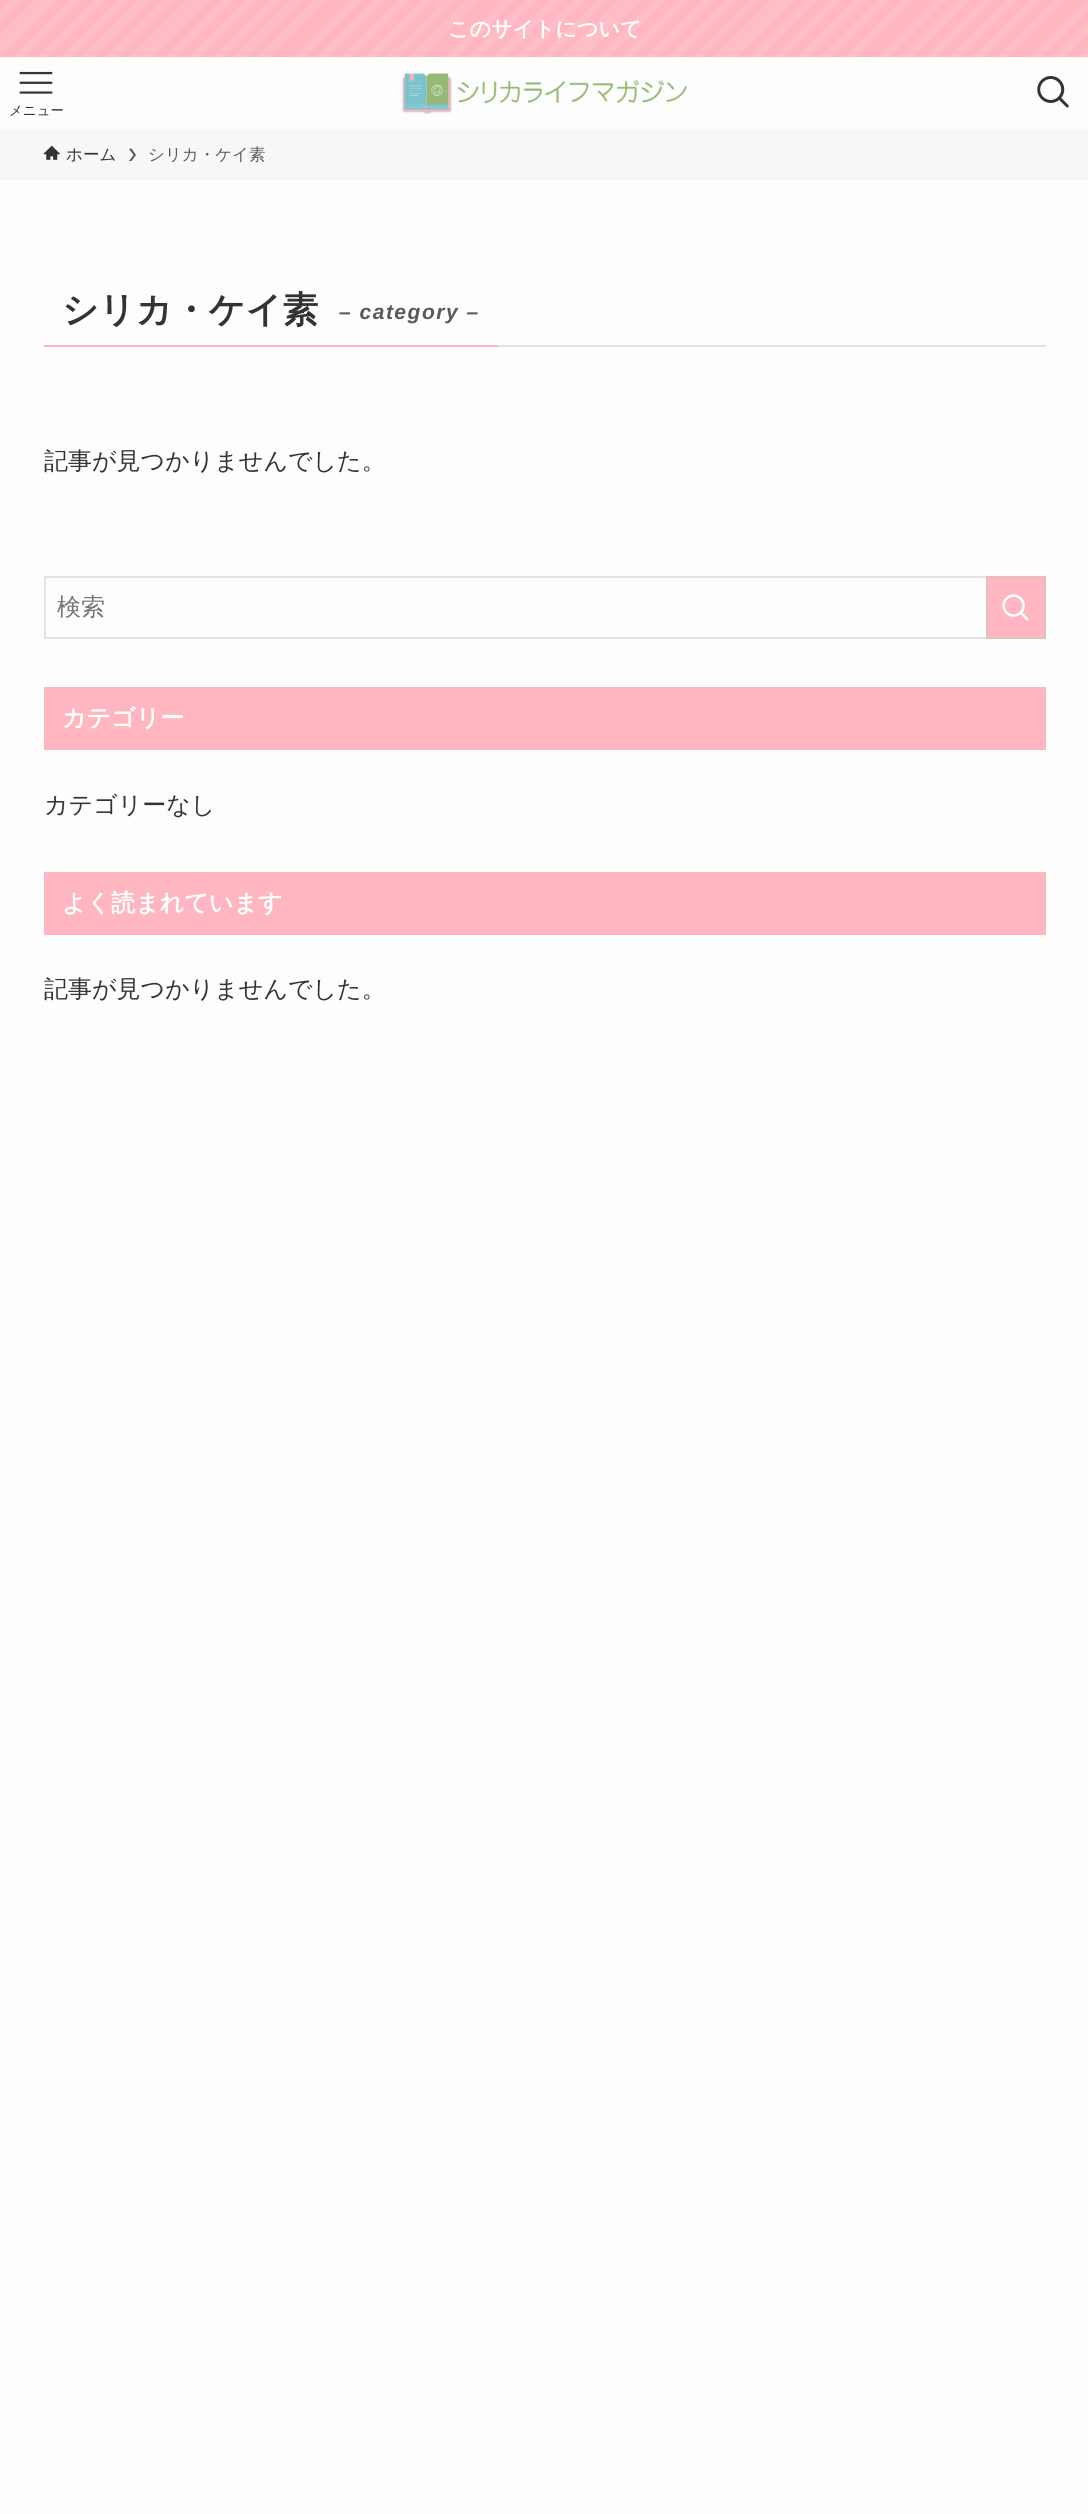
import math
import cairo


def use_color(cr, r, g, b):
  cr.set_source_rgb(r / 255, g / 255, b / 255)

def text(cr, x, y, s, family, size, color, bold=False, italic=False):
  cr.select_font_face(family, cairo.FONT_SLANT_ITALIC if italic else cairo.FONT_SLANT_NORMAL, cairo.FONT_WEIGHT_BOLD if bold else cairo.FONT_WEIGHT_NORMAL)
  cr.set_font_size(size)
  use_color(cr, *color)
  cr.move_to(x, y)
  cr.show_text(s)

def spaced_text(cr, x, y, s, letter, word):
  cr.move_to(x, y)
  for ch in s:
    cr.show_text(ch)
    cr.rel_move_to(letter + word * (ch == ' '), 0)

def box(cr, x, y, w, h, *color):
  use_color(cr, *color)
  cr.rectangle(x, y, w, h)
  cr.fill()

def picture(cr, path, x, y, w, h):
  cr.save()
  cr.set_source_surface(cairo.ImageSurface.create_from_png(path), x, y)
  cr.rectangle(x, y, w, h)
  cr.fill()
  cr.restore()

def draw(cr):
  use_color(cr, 253, 253, 253)
  cr.paint()
  gradient = cairo.LinearGradient(831, 315, 246, -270)
  gradient.add_color_stop_rgba(0, 1, 0.741, 0.78, 1)
  gradient.add_color_stop_rgba(0.01, 1, 0.741, 0.78, 1)
  gradient.add_color_stop_rgba(0.01, 1, 0.714, 0.757, 1)
  gradient.add_color_stop_rgba(0.02, 1, 0.714, 0.757, 1)
  gradient.add_color_stop_rgba(0.02, 1, 0.741, 0.78, 1)
  gradient.add_color_stop_rgba(0.03, 1, 0.741, 0.78, 1)
  gradient.add_color_stop_rgba(0.03, 1, 0.714, 0.757, 1)
  gradient.add_color_stop_rgba(0.04, 1, 0.714, 0.757, 1)
  gradient.add_color_stop_rgba(0.04, 1, 0.741, 0.78, 1)
  gradient.add_color_stop_rgba(0.05, 1, 0.741, 0.78, 1)
  gradient.add_color_stop_rgba(0.05, 1, 0.714, 0.757, 1)
  gradient.add_color_stop_rgba(0.07, 1, 0.714, 0.757, 1)
  gradient.add_color_stop_rgba(0.07, 1, 0.741, 0.78, 1)
  gradient.add_color_stop_rgba(0.08, 1, 0.741, 0.78, 1)
  gradient.add_color_stop_rgba(0.08, 1, 0.714, 0.757, 1)
  gradient.add_color_stop_rgba(0.09, 1, 0.714, 0.757, 1)
  gradient.add_color_stop_rgba(0.09, 1, 0.741, 0.78, 1)
  gradient.add_color_stop_rgba(0.1, 1, 0.741, 0.78, 1)
  gradient.add_color_stop_rgba(0.1, 1, 0.714, 0.757, 1)
  gradient.add_color_stop_rgba(0.11, 1, 0.714, 0.757, 1)
  gradient.add_color_stop_rgba(0.11, 1, 0.741, 0.78, 1)
  gradient.add_color_stop_rgba(0.12, 1, 0.741, 0.78, 1)
  gradient.add_color_stop_rgba(0.12, 1, 0.714, 0.757, 1)
  gradient.add_color_stop_rgba(0.13, 1, 0.714, 0.757, 1)
  gradient.add_color_stop_rgba(0.13, 1, 0.741, 0.78, 1)
  gradient.add_color_stop_rgba(0.14, 1, 0.741, 0.78, 1)
  gradient.add_color_stop_rgba(0.14, 1, 0.714, 0.757, 1)
  gradient.add_color_stop_rgba(0.15, 1, 0.714, 0.757, 1)
  gradient.add_color_stop_rgba(0.15, 1, 0.741, 0.78, 1)
  gradient.add_color_stop_rgba(0.16, 1, 0.741, 0.78, 1)
  gradient.add_color_stop_rgba(0.16, 1, 0.714, 0.757, 1)
  gradient.add_color_stop_rgba(0.17, 1, 0.714, 0.757, 1)
  gradient.add_color_stop_rgba(0.17, 1, 0.741, 0.78, 1)
  gradient.add_color_stop_rgba(0.18, 1, 0.741, 0.78, 1)
  gradient.add_color_stop_rgba(0.18, 1, 0.714, 0.757, 1)
  gradient.add_color_stop_rgba(0.2, 1, 0.714, 0.757, 1)
  gradient.add_color_stop_rgba(0.2, 1, 0.741, 0.78, 1)
  gradient.add_color_stop_rgba(0.21, 1, 0.741, 0.78, 1)
  gradient.add_color_stop_rgba(0.21, 1, 0.714, 0.757, 1)
  gradient.add_color_stop_rgba(0.22, 1, 0.714, 0.757, 1)
  gradient.add_color_stop_rgba(0.22, 1, 0.741, 0.78, 1)
  gradient.add_color_stop_rgba(0.23, 1, 0.741, 0.78, 1)
  gradient.add_color_stop_rgba(0.23, 1, 0.714, 0.757, 1)
  gradient.add_color_stop_rgba(0.24, 1, 0.714, 0.757, 1)
  gradient.add_color_stop_rgba(0.24, 1, 0.741, 0.78, 1)
  gradient.add_color_stop_rgba(0.25, 1, 0.741, 0.78, 1)
  gradient.add_color_stop_rgba(0.25, 1, 0.714, 0.757, 1)
  gradient.add_color_stop_rgba(0.26, 1, 0.714, 0.757, 1)
  gradient.add_color_stop_rgba(0.26, 1, 0.741, 0.78, 1)
  gradient.add_color_stop_rgba(0.27, 1, 0.741, 0.78, 1)
  gradient.add_color_stop_rgba(0.27, 1, 0.714, 0.757, 1)
  gradient.add_color_stop_rgba(0.28, 1, 0.714, 0.757, 1)
  gradient.add_color_stop_rgba(0.28, 1, 0.741, 0.78, 1)
  gradient.add_color_stop_rgba(0.29, 1, 0.741, 0.78, 1)
  gradient.add_color_stop_rgba(0.29, 1, 0.714, 0.757, 1)
  gradient.add_color_stop_rgba(0.3, 1, 0.714, 0.757, 1)
  gradient.add_color_stop_rgba(0.3, 1, 0.741, 0.78, 1)
  gradient.add_color_stop_rgba(0.32, 1, 0.741, 0.78, 1)
  gradient.add_color_stop_rgba(0.32, 1, 0.714, 0.757, 1)
  gradient.add_color_stop_rgba(0.33, 1, 0.714, 0.757, 1)
  gradient.add_color_stop_rgba(0.33, 1, 0.741, 0.78, 1)
  gradient.add_color_stop_rgba(0.34, 1, 0.741, 0.78, 1)
  gradient.add_color_stop_rgba(0.34, 1, 0.714, 0.757, 1)
  gradient.add_color_stop_rgba(0.35, 1, 0.714, 0.757, 1)
  gradient.add_color_stop_rgba(0.35, 1, 0.741, 0.78, 1)
  gradient.add_color_stop_rgba(0.36, 1, 0.741, 0.78, 1)
  gradient.add_color_stop_rgba(0.36, 1, 0.714, 0.757, 1)
  gradient.add_color_stop_rgba(0.37, 1, 0.714, 0.757, 1)
  gradient.add_color_stop_rgba(0.37, 1, 0.741, 0.78, 1)
  gradient.add_color_stop_rgba(0.38, 1, 0.741, 0.78, 1)
  gradient.add_color_stop_rgba(0.38, 1, 0.714, 0.757, 1)
  gradient.add_color_stop_rgba(0.39, 1, 0.714, 0.757, 1)
  gradient.add_color_stop_rgba(0.39, 1, 0.741, 0.78, 1)
  gradient.add_color_stop_rgba(0.4, 1, 0.741, 0.78, 1)
  gradient.add_color_stop_rgba(0.4, 1, 0.714, 0.757, 1)
  gradient.add_color_stop_rgba(0.41, 1, 0.714, 0.757, 1)
  gradient.add_color_stop_rgba(0.41, 1, 0.741, 0.78, 1)
  gradient.add_color_stop_rgba(0.42, 1, 0.741, 0.78, 1)
  gradient.add_color_stop_rgba(0.42, 1, 0.714, 0.757, 1)
  gradient.add_color_stop_rgba(0.43, 1, 0.714, 0.757, 1)
  gradient.add_color_stop_rgba(0.43, 1, 0.741, 0.78, 1)
  gradient.add_color_stop_rgba(0.45, 1, 0.741, 0.78, 1)
  gradient.add_color_stop_rgba(0.45, 1, 0.714, 0.757, 1)
  gradient.add_color_stop_rgba(0.46, 1, 0.714, 0.757, 1)
  gradient.add_color_stop_rgba(0.46, 1, 0.741, 0.78, 1)
  gradient.add_color_stop_rgba(0.47, 1, 0.741, 0.78, 1)
  gradient.add_color_stop_rgba(0.47, 1, 0.714, 0.757, 1)
  gradient.add_color_stop_rgba(0.48, 1, 0.714, 0.757, 1)
  gradient.add_color_stop_rgba(0.48, 1, 0.741, 0.78, 1)
  gradient.add_color_stop_rgba(0.49, 1, 0.741, 0.78, 1)
  gradient.add_color_stop_rgba(0.49, 1, 0.714, 0.757, 1)
  gradient.add_color_stop_rgba(0.5, 1, 0.714, 0.757, 1)
  gradient.add_color_stop_rgba(0.5, 1, 0.741, 0.78, 1)
  gradient.add_color_stop_rgba(0.51, 1, 0.741, 0.78, 1)
  gradient.add_color_stop_rgba(0.51, 1, 0.714, 0.757, 1)
  gradient.add_color_stop_rgba(0.52, 1, 0.714, 0.757, 1)
  gradient.add_color_stop_rgba(0.52, 1, 0.741, 0.78, 1)
  gradient.add_color_stop_rgba(0.53, 1, 0.741, 0.78, 1)
  gradient.add_color_stop_rgba(0.53, 1, 0.714, 0.757, 1)
  gradient.add_color_stop_rgba(0.54, 1, 0.714, 0.757, 1)
  gradient.add_color_stop_rgba(0.54, 1, 0.741, 0.78, 1)
  gradient.add_color_stop_rgba(0.55, 1, 0.741, 0.78, 1)
  gradient.add_color_stop_rgba(0.55, 1, 0.714, 0.757, 1)
  gradient.add_color_stop_rgba(0.57, 1, 0.714, 0.757, 1)
  gradient.add_color_stop_rgba(0.57, 1, 0.741, 0.78, 1)
  gradient.add_color_stop_rgba(0.58, 1, 0.741, 0.78, 1)
  gradient.add_color_stop_rgba(0.58, 1, 0.714, 0.757, 1)
  gradient.add_color_stop_rgba(0.59, 1, 0.714, 0.757, 1)
  gradient.add_color_stop_rgba(0.59, 1, 0.741, 0.78, 1)
  gradient.add_color_stop_rgba(0.6, 1, 0.741, 0.78, 1)
  gradient.add_color_stop_rgba(0.6, 1, 0.714, 0.757, 1)
  gradient.add_color_stop_rgba(0.61, 1, 0.714, 0.757, 1)
  gradient.add_color_stop_rgba(0.61, 1, 0.741, 0.78, 1)
  gradient.add_color_stop_rgba(0.62, 1, 0.741, 0.78, 1)
  gradient.add_color_stop_rgba(0.62, 1, 0.714, 0.757, 1)
  gradient.add_color_stop_rgba(0.63, 1, 0.714, 0.757, 1)
  gradient.add_color_stop_rgba(0.63, 1, 0.741, 0.78, 1)
  gradient.add_color_stop_rgba(0.64, 1, 0.741, 0.78, 1)
  gradient.add_color_stop_rgba(0.64, 1, 0.714, 0.757, 1)
  gradient.add_color_stop_rgba(0.65, 1, 0.714, 0.757, 1)
  gradient.add_color_stop_rgba(0.65, 1, 0.741, 0.78, 1)
  gradient.add_color_stop_rgba(0.66, 1, 0.741, 0.78, 1)
  gradient.add_color_stop_rgba(0.66, 1, 0.714, 0.757, 1)
  gradient.add_color_stop_rgba(0.67, 1, 0.714, 0.757, 1)
  gradient.add_color_stop_rgba(0.67, 1, 0.741, 0.78, 1)
  gradient.add_color_stop_rgba(0.68, 1, 0.741, 0.78, 1)
  gradient.add_color_stop_rgba(0.68, 1, 0.714, 0.757, 1)
  gradient.add_color_stop_rgba(0.7, 1, 0.714, 0.757, 1)
  gradient.add_color_stop_rgba(0.7, 1, 0.741, 0.78, 1)
  gradient.add_color_stop_rgba(0.71, 1, 0.741, 0.78, 1)
  gradient.add_color_stop_rgba(0.71, 1, 0.714, 0.757, 1)
  gradient.add_color_stop_rgba(0.72, 1, 0.714, 0.757, 1)
  gradient.add_color_stop_rgba(0.72, 1, 0.741, 0.78, 1)
  gradient.add_color_stop_rgba(0.73, 1, 0.741, 0.78, 1)
  gradient.add_color_stop_rgba(0.73, 1, 0.714, 0.757, 1)
  gradient.add_color_stop_rgba(0.74, 1, 0.714, 0.757, 1)
  gradient.add_color_stop_rgba(0.74, 1, 0.741, 0.78, 1)
  gradient.add_color_stop_rgba(0.75, 1, 0.741, 0.78, 1)
  gradient.add_color_stop_rgba(0.75, 1, 0.714, 0.757, 1)
  gradient.add_color_stop_rgba(0.76, 1, 0.714, 0.757, 1)
  gradient.add_color_stop_rgba(0.76, 1, 0.741, 0.78, 1)
  gradient.add_color_stop_rgba(0.77, 1, 0.741, 0.78, 1)
  gradient.add_color_stop_rgba(0.77, 1, 0.714, 0.757, 1)
  gradient.add_color_stop_rgba(0.78, 1, 0.714, 0.757, 1)
  gradient.add_color_stop_rgba(0.78, 1, 0.741, 0.78, 1)
  gradient.add_color_stop_rgba(0.79, 1, 0.741, 0.78, 1)
  gradient.add_color_stop_rgba(0.79, 1, 0.714, 0.757, 1)
  gradient.add_color_stop_rgba(0.8, 1, 0.714, 0.757, 1)
  gradient.add_color_stop_rgba(0.8, 1, 0.741, 0.78, 1)
  gradient.add_color_stop_rgba(0.82, 1, 0.741, 0.78, 1)
  gradient.add_color_stop_rgba(0.82, 1, 0.714, 0.757, 1)
  gradient.add_color_stop_rgba(0.83, 1, 0.714, 0.757, 1)
  gradient.add_color_stop_rgba(0.83, 1, 0.741, 0.78, 1)
  gradient.add_color_stop_rgba(0.84, 1, 0.741, 0.78, 1)
  gradient.add_color_stop_rgba(0.84, 1, 0.714, 0.757, 1)
  gradient.add_color_stop_rgba(0.85, 1, 0.714, 0.757, 1)
  gradient.add_color_stop_rgba(0.85, 1, 0.741, 0.78, 1)
  gradient.add_color_stop_rgba(0.86, 1, 0.741, 0.78, 1)
  gradient.add_color_stop_rgba(0.86, 1, 0.714, 0.757, 1)
  gradient.add_color_stop_rgba(0.87, 1, 0.714, 0.757, 1)
  gradient.add_color_stop_rgba(0.87, 1, 0.741, 0.78, 1)
  gradient.add_color_stop_rgba(0.88, 1, 0.741, 0.78, 1)
  gradient.add_color_stop_rgba(0.88, 1, 0.714, 0.757, 1)
  gradient.add_color_stop_rgba(0.89, 1, 0.714, 0.757, 1)
  gradient.add_color_stop_rgba(0.89, 1, 0.741, 0.78, 1)
  gradient.add_color_stop_rgba(0.9, 1, 0.741, 0.78, 1)
  gradient.add_color_stop_rgba(0.9, 1, 0.714, 0.757, 1)
  gradient.add_color_stop_rgba(0.91, 1, 0.714, 0.757, 1)
  gradient.add_color_stop_rgba(0.91, 1, 0.741, 0.78, 1)
  gradient.add_color_stop_rgba(0.92, 1, 0.741, 0.78, 1)
  gradient.add_color_stop_rgba(0.92, 1, 0.714, 0.757, 1)
  gradient.add_color_stop_rgba(0.93, 1, 0.714, 0.757, 1)
  gradient.add_color_stop_rgba(0.93, 1, 0.741, 0.78, 1)
  gradient.add_color_stop_rgba(0.95, 1, 0.741, 0.78, 1)
  gradient.add_color_stop_rgba(0.95, 1, 0.714, 0.757, 1)
  gradient.add_color_stop_rgba(0.96, 1, 0.714, 0.757, 1)
  gradient.add_color_stop_rgba(0.96, 1, 0.741, 0.78, 1)
  gradient.add_color_stop_rgba(0.97, 1, 0.741, 0.78, 1)
  gradient.add_color_stop_rgba(0.97, 1, 0.714, 0.757, 1)
  gradient.add_color_stop_rgba(0.98, 1, 0.714, 0.757, 1)
  gradient.add_color_stop_rgba(0.98, 1, 0.741, 0.78, 1)
  gradient.add_color_stop_rgba(0.99, 1, 0.741, 0.78, 1)
  gradient.add_color_stop_rgba(0.99, 1, 0.714, 0.757, 1)
  gradient.add_color_stop_rgba(1, 1, 0.714, 0.757, 1)
  cr.set_source(gradient)
  cr.rectangle(0, 0, 1088, 57)
  cr.fill()
  picture(cr, "img_01.png", 402, 73, 285, 41)
  picture(cr, "img_02.png", 1037, 76, 32, 32)
  picture(cr, "img_03.png", 19, 71, 34, 23)
  box(cr, 0, 129, 1088, 51, 247, 247, 247)
  picture(cr, "img_04.png", 43, 145, 17, 15)
  use_color(cr, 90, 90, 90)
  cr.new_path()
  cr.move_to(131.5, 148.5)
  cr.line_to(129, 149)
  cr.line_to(133.5, 155)
  cr.line_to(129, 161)
  cr.line_to(131.5, 161)
  cr.line_to(136, 155)
  cr.close_path()
  cr.fill()
  box(cr, 498, 345, 548, 2, 226, 226, 226)
  box(cr, 44, 345, 454, 2, 255, 182, 193)
  cr.rectangle(45, 577, 1000, 61)
  use_color(cr, 227, 227, 227)
  cr.stroke()
  use_color(cr, 255, 182, 193)
  cr.rectangle(987, 577, 58, 61)
  cr.fill_preserve()
  use_color(cr, 227, 191, 196)
  cr.stroke()
  picture(cr, "img_05.png", 1002, 594, 27, 27)
  box(cr, 44, 687, 1002, 63, 255, 182, 193)
  box(cr, 44, 872, 1002, 63, 255, 182, 193)
  text(cr, 448, 36, "このサイトについて", "WenQuanYi Zen Hei", 21, (255, 255, 255), bold=True)
  text(cr, 9, 115, "メニュー", "WenQuanYi Zen Hei Medium", 13.5, (51, 51, 51))
  text(cr, 66, 160, "ホーム", "WenQuanYi Zen Hei Medium", 16.5, (51, 51, 51))
  text(cr, 148, 160, "シリカ・ケイ素", "WenQuanYi Zen Hei Medium", 16.5, (90, 90, 90))
  text(cr, 62, 322, "シリカ・ケイ素", "WenQuanYi Zen Hei", 36, (51, 51, 51), bold=True)
  cr.select_font_face("Liberation Sans", cairo.FONT_SLANT_ITALIC, cairo.FONT_WEIGHT_BOLD)
  cr.set_font_size(21)
  use_color(cr, 90, 90, 90)
  spaced_text(cr, 339, 319, "– category –", 1.5, 0)
  text(cr, 44, 469, "記事が見つかりませんでした。", "WenQuanYi Zen Hei Medium", 24, (51, 51, 51))
  text(cr, 57, 615, "検索", "WenQuanYi Zen Hei Medium", 24, (117, 117, 117))
  text(cr, 62, 726, "カテゴリー", "WenQuanYi Zen Hei", 24, (255, 255, 255), bold=True)
  text(cr, 44, 813, "カテゴリーなし", "WenQuanYi Zen Hei Medium", 24, (51, 51, 51))
  text(cr, 62, 911, "よく読まれています", "WenQuanYi Zen Hei", 24, (255, 255, 255), bold=True)
  text(cr, 44, 997, "記事が見つかりませんでした。", "WenQuanYi Zen Hei Medium", 24, (51, 51, 51))


surface = cairo.ImageSurface(cairo.FORMAT_RGB24, 1088, 2514)
cr = cairo.Context(surface)
options = cairo.FontOptions()
options.set_hint_metrics(cairo.HINT_METRICS_OFF)
options.set_hint_style(cairo.HINT_STYLE_NONE)
cr.set_font_options(options)
cr.set_miter_limit(4)
draw(cr)
surface.write_to_png("out.png")
